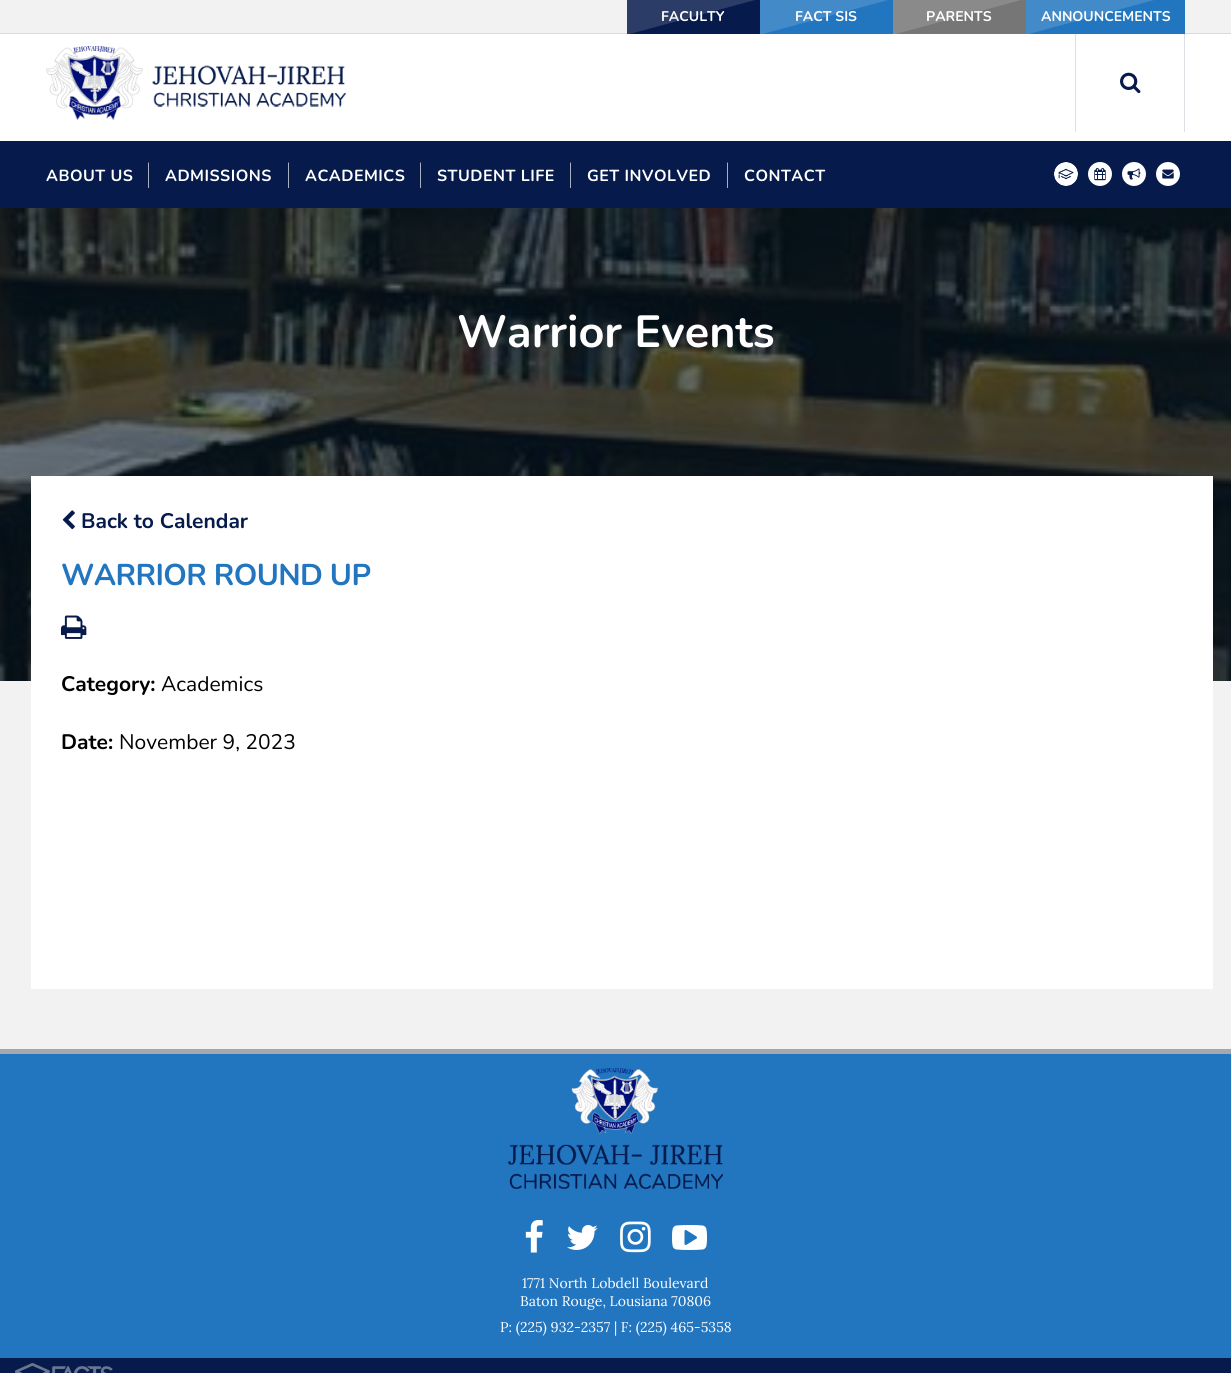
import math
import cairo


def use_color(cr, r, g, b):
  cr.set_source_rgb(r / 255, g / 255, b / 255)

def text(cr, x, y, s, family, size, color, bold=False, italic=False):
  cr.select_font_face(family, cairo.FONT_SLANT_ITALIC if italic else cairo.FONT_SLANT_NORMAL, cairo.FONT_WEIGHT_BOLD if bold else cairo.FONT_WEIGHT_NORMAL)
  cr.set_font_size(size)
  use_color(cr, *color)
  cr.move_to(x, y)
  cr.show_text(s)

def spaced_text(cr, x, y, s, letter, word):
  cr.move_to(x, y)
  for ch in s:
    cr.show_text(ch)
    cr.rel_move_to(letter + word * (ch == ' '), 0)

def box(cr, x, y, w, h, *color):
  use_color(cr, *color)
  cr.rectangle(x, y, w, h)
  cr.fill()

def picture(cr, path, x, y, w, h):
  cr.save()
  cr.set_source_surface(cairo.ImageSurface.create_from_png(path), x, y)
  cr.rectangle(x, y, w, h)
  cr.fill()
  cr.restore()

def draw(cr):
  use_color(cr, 242, 242, 242)
  cr.paint()
  box(cr, 0, 34, 1231, 107, 255, 255, 255)
  box(cr, 0, 33, 1231, 1, 215, 219, 224)
  box(cr, 627, 0, 133, 34, 6, 27, 76)
  picture(cr, "img_01.png", 627, 0, 128, 34)
  box(cr, 760, 0, 133, 34, 34, 117, 191)
  picture(cr, "img_02.png", 760, 0, 128, 34)
  box(cr, 893, 0, 133, 34, 118, 118, 118)
  picture(cr, "img_03.png", 893, 0, 127, 34)
  box(cr, 1026, 0, 159, 34, 34, 117, 191)
  picture(cr, "img_02.png", 1026, 0, 128, 34)
  picture(cr, "img_04.png", 46, 46, 300, 74)
  box(cr, 1184, 34, 1, 98, 219, 223, 228)
  box(cr, 1075, 34, 1, 98, 219, 223, 228)
  picture(cr, "img_05.png", 1120, 72, 21, 22)
  box(cr, 0, 141, 1231, 67, 6, 27, 76)
  picture(cr, "img_06.png", 148, 162, 1, 26)
  picture(cr, "img_06.png", 288, 162, 1, 26)
  picture(cr, "img_06.png", 420, 162, 1, 26)
  picture(cr, "img_06.png", 570, 162, 1, 26)
  picture(cr, "img_06.png", 727, 162, 1, 26)
  picture(cr, "img_07.png", 1054, 162, 24, 24)
  picture(cr, "img_08.png", 1088, 162, 24, 24)
  picture(cr, "img_09.png", 1122, 162, 24, 24)
  picture(cr, "img_10.png", 1156, 162, 24, 24)
  picture(cr, "img_11.png", 0, 208, 1231, 473)
  box(cr, 31, 476, 1182, 513, 255, 255, 255)
  picture(cr, "img_12.png", 62, 510, 13, 20)
  picture(cr, "img_13.png", 61, 615, 26, 24)
  box(cr, 0, 1054, 1231, 304, 34, 117, 191)
  box(cr, 0, 1049, 1231, 5, 167, 168, 173)
  picture(cr, "img_14.png", 508, 1068, 215, 121)
  picture(cr, "img_15.png", 525, 1220, 18, 33)
  picture(cr, "img_16.png", 567, 1225, 31, 25)
  picture(cr, "img_17.png", 620, 1221, 31, 32)
  picture(cr, "img_18.png", 672, 1225, 35, 25)
  box(cr, 0, 1358, 1231, 15, 6, 27, 76)
  picture(cr, "img_19.png", 15, 1363, 98, 10)
  text(cr, 661, 21, "FACULTY", "Nunito", 14, (255, 255, 255), bold=True)
  text(cr, 795, 21, "FACT SIS", "Nunito", 14, (255, 255, 255), bold=True)
  text(cr, 926, 21, "PARENTS", "Nunito", 14, (255, 255, 255), bold=True)
  text(cr, 1041, 21, "ANNOUNCEMENTS", "Nunito", 14, (255, 255, 255), bold=True)
  cr.set_font_size(16)
  spaced_text(cr, 46, 181, "ABOUT US", 0.5, 0)
  spaced_text(cr, 165, 181, "ADMISSIONS", 0.5, 0)
  spaced_text(cr, 305, 181, "ACADEMICS", 0.5, 0)
  spaced_text(cr, 437, 181, "STUDENT LIFE", 0.5, 0)
  spaced_text(cr, 587, 181, "GET INVOLVED", 0.5, 0)
  spaced_text(cr, 744, 181, "CONTACT", 0.5, 0)
  text(cr, 457, 347, "Warrior Events", "Nunito", 45, (255, 255, 255), bold=True)
  text(cr, 81, 528, "Back to Calendar", "Nunito", 21, (6, 27, 76), bold=True)
  cr.set_font_size(30)
  use_color(cr, 34, 117, 191)
  spaced_text(cr, 61, 585, "WARRIOR ROUND UP", -0.6, 0)
  text(cr, 61, 691, "Category:", "Nunito", 21, (0, 0, 0), bold=True)
  text(cr, 161, 691, "Academics", "Nunito", 21, (0, 0, 0))
  text(cr, 61, 749, "Date:", "Nunito", 21, (0, 0, 0), bold=True)
  text(cr, 119, 749, "November 9, 2023", "Nunito", 21, (0, 0, 0))
  text(cr, 522, 1288, "1771 North Lobdell Boulevard", "Lora", 14, (255, 255, 255))
  text(cr, 520, 1306, "Baton Rouge, Lousiana 70806", "Lora", 14, (255, 255, 255))
  text(cr, 500, 1332, "P: (225) 932-2357 | F: (225) 465-5358", "Lora", 14, (255, 255, 255))


surface = cairo.ImageSurface(cairo.FORMAT_RGB24, 1231, 1373)
cr = cairo.Context(surface)
options = cairo.FontOptions()
options.set_hint_metrics(cairo.HINT_METRICS_OFF)
options.set_hint_style(cairo.HINT_STYLE_NONE)
cr.set_font_options(options)
cr.set_miter_limit(4)
draw(cr)
surface.write_to_png("out.png")
